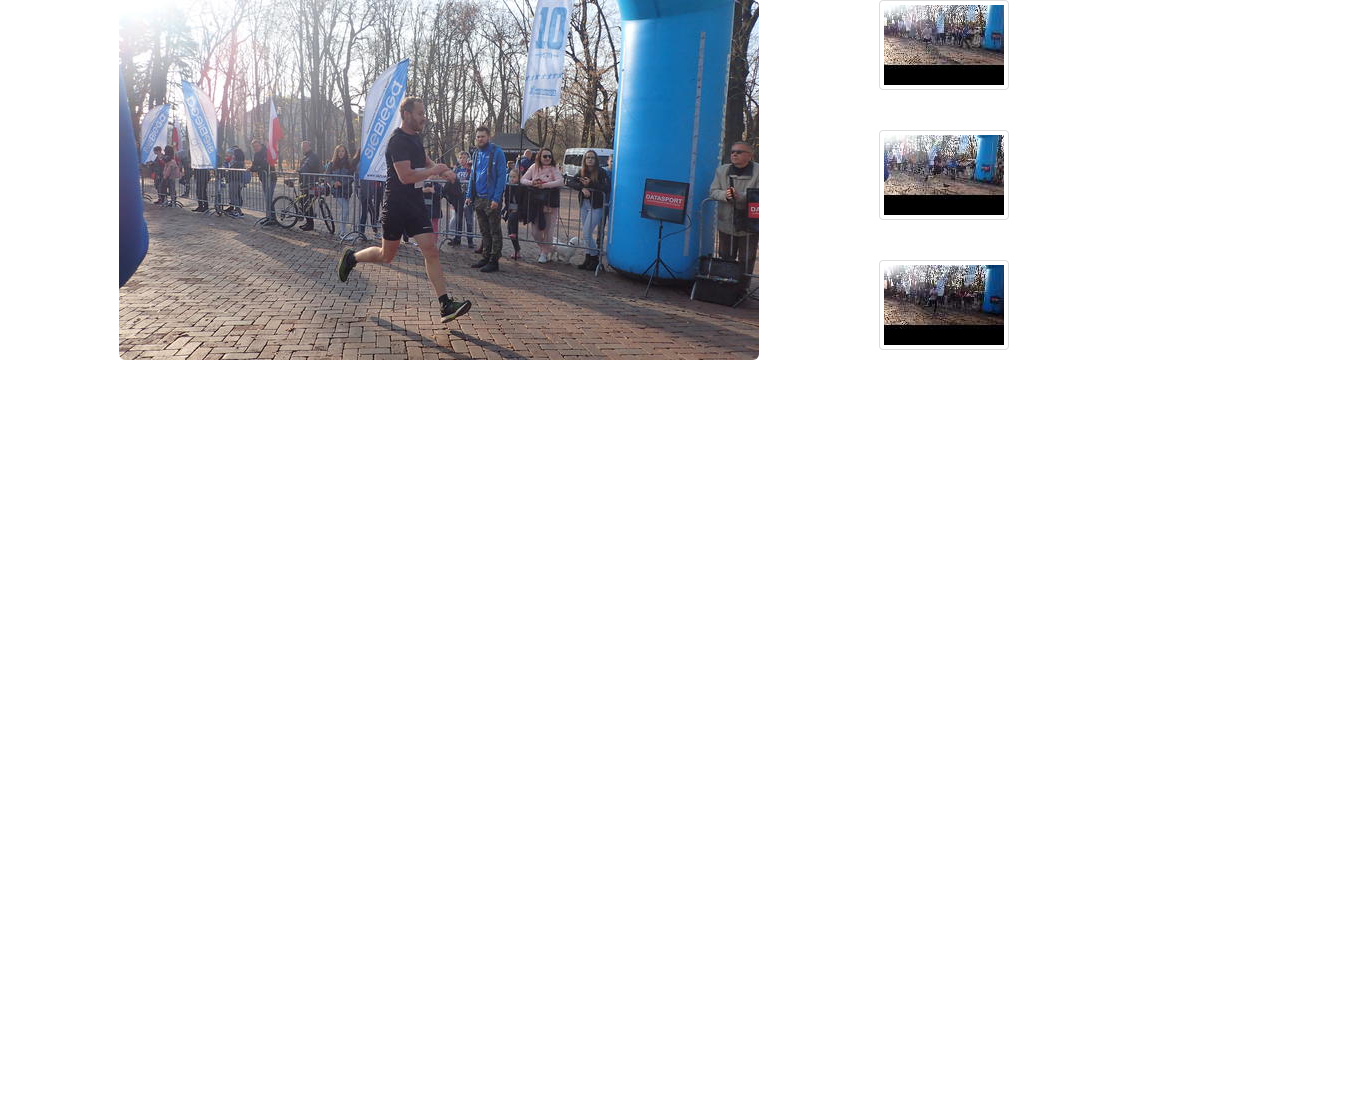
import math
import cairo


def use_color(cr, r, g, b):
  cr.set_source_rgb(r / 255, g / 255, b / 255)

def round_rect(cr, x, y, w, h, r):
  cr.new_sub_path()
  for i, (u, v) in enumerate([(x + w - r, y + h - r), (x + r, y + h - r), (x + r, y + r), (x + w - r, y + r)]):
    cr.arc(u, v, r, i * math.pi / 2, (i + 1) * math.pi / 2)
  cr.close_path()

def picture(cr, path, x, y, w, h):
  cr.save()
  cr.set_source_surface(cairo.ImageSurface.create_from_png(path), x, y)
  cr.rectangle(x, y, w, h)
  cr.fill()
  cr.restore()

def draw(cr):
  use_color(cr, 255, 255, 255)
  cr.paint()
  picture(cr, "img_01.png", 119, 0, 640, 360)
  round_rect(cr, 879.5, 0.5, 129, 89, 3.5)
  use_color(cr, 221, 221, 221)
  cr.set_line_width(1)
  cr.stroke()
  picture(cr, "img_02.png", 884, 5, 120, 80)
  round_rect(cr, 879.5, 130.5, 129, 89, 3.5)
  cr.stroke()
  picture(cr, "img_03.png", 884, 135, 120, 80)
  round_rect(cr, 879.5, 260.5, 129, 89, 3.5)
  cr.stroke()
  picture(cr, "img_04.png", 884, 265, 120, 80)


surface = cairo.ImageSurface(cairo.FORMAT_RGB24, 1347, 1109)
cr = cairo.Context(surface)
options = cairo.FontOptions()
options.set_hint_metrics(cairo.HINT_METRICS_OFF)
options.set_hint_style(cairo.HINT_STYLE_NONE)
cr.set_font_options(options)
cr.set_miter_limit(4)
draw(cr)
surface.write_to_png("out.png")
